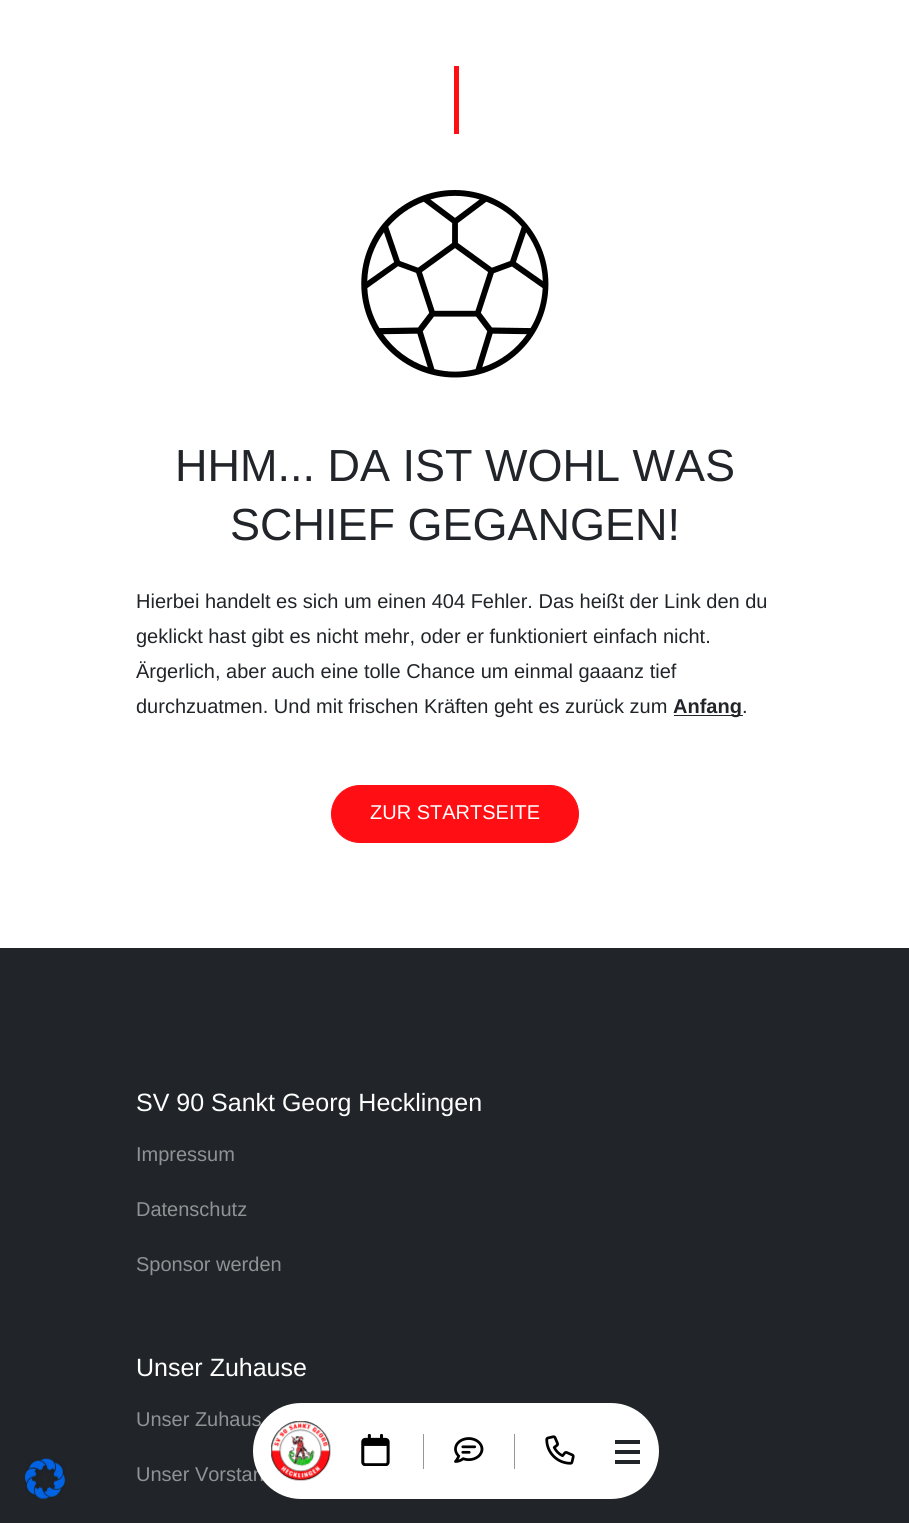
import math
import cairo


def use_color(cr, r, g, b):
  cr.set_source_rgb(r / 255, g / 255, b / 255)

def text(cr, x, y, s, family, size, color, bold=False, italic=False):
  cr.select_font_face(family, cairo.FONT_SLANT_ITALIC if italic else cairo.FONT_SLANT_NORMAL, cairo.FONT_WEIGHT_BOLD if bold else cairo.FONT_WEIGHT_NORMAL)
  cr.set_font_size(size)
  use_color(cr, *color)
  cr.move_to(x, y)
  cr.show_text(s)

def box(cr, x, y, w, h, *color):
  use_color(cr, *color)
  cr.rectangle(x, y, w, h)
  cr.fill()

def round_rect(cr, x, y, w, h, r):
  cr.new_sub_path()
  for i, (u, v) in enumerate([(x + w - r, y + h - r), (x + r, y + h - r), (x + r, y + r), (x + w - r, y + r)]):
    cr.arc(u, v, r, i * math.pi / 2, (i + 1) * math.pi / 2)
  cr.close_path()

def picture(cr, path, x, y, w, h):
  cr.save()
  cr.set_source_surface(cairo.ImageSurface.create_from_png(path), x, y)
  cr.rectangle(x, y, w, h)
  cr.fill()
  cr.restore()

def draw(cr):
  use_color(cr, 255, 255, 255)
  cr.paint()
  box(cr, 0, 948, 909, 575, 33, 37, 41)
  picture(cr, "img_01.png", 25, 1458, 40, 41)
  box(cr, 454, 66, 5, 68, 255, 15, 19)
  picture(cr, "img_02.png", 361, 190, 188, 188)
  box(cr, 674, 715, 69, 1, 33, 37, 41)
  use_color(cr, 255, 15, 19)
  round_rect(cr, 331.5, 785.5, 247, 57, 28.5)
  cr.fill_preserve()
  cr.set_line_width(1)
  cr.stroke()
  text(cr, 175, 481, "HHM... DA IST WOHL WAS", "Liberation Sans", 45, (33, 37, 41))
  text(cr, 230, 540, "SCHIEF GEGANGEN!", "Liberation Sans", 45, (33, 37, 41))
  text(cr, 136, 608, "Hierbei handelt es sich um einen 404 Fehler. Das heißt der Link den du", "Liberation Sans", 20, (33, 37, 41))
  text(cr, 136, 643, "geklickt hast gibt es nicht mehr, oder er funktioniert einfach nicht.", "Liberation Sans", 20, (33, 37, 41))
  text(cr, 136, 678, "Ärgerlich, aber auch eine tolle Chance um einmal gaaanz tief", "Liberation Sans", 20, (33, 37, 41))
  text(cr, 136, 713, "durchzuatmen. Und mit frischen Kräften geht es zurück zum", "Liberation Sans", 20, (33, 37, 41))
  text(cr, 673, 713, "Anfang", "Liberation Sans", 20, (33, 37, 41), bold=True)
  text(cr, 742, 713, ".", "Liberation Sans", 20, (33, 37, 41))
  text(cr, 370, 819, "ZUR STARTSEITE", "Liberation Sans", 20, (255, 255, 255))
  text(cr, 136, 1111, "SV 90 Sankt Georg Hecklingen", "Liberation Sans", 25, (255, 255, 255))
  text(cr, 136, 1161, "Impressum", "Liberation Sans", 20, (144, 146, 148))
  text(cr, 136, 1216, "Datenschutz", "Liberation Sans", 20, (144, 146, 148))
  text(cr, 136, 1271, "Sponsor werden", "Liberation Sans", 20, (144, 146, 148))
  text(cr, 136, 1376, "Unser Zuhause", "Liberation Sans", 25, (255, 255, 255))
  text(cr, 136, 1426, "Unser Zuhaus", "Liberation Sans", 20, (144, 146, 148))
  text(cr, 136, 1481, "Unser Vorstan", "Liberation Sans", 20, (144, 146, 148))
  use_color(cr, 255, 255, 255)
  round_rect(cr, 253, 1403, 406, 96, 48)
  cr.fill()
  picture(cr, "img_03.png", 271, 1421, 60, 60)
  picture(cr, "img_04.png", 361, 1434, 29, 32)
  box(cr, 423, 1434, 1, 35, 151, 151, 151)
  picture(cr, "img_05.png", 454, 1437, 30, 26)
  box(cr, 514, 1434, 1, 35, 151, 151, 151)
  picture(cr, "img_06.png", 545, 1435, 30, 30)
  box(cr, 615, 1450, 25, 4, 33, 37, 41)
  box(cr, 615, 1440, 25, 4, 33, 37, 41)
  box(cr, 615, 1460, 25, 4, 33, 37, 41)


surface = cairo.ImageSurface(cairo.FORMAT_RGB24, 909, 1523)
cr = cairo.Context(surface)
options = cairo.FontOptions()
options.set_hint_metrics(cairo.HINT_METRICS_OFF)
options.set_hint_style(cairo.HINT_STYLE_NONE)
cr.set_font_options(options)
cr.set_miter_limit(4)
draw(cr)
surface.write_to_png("out.png")
